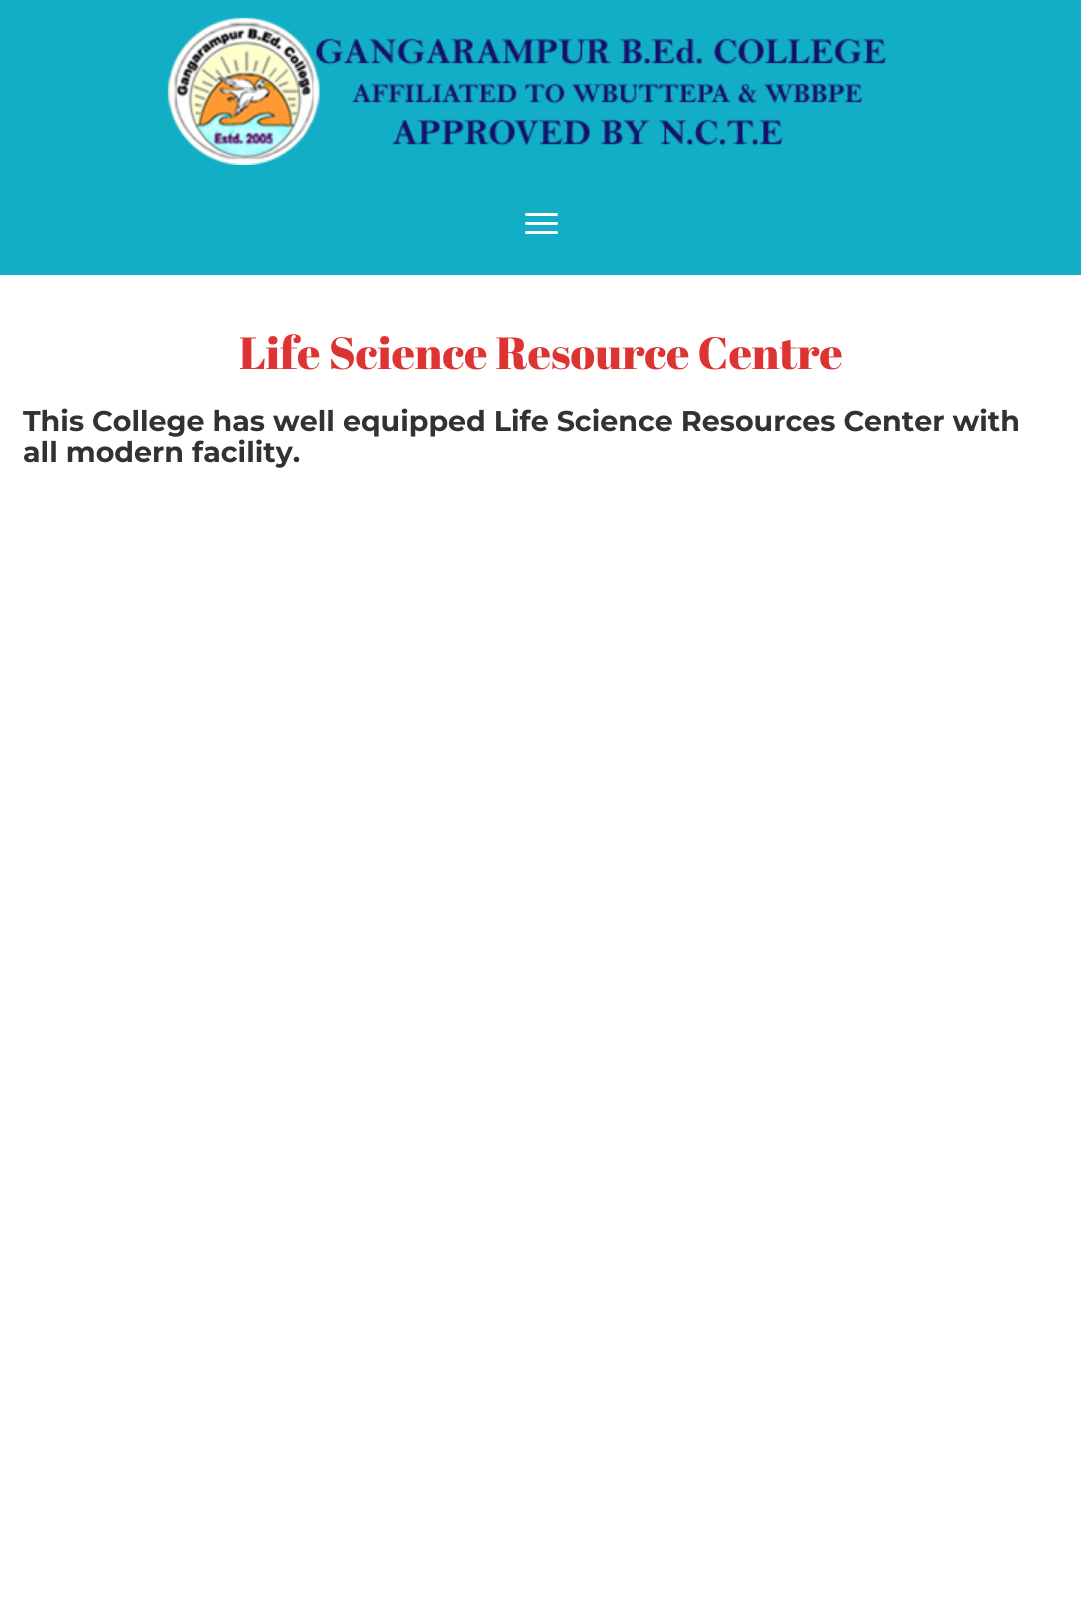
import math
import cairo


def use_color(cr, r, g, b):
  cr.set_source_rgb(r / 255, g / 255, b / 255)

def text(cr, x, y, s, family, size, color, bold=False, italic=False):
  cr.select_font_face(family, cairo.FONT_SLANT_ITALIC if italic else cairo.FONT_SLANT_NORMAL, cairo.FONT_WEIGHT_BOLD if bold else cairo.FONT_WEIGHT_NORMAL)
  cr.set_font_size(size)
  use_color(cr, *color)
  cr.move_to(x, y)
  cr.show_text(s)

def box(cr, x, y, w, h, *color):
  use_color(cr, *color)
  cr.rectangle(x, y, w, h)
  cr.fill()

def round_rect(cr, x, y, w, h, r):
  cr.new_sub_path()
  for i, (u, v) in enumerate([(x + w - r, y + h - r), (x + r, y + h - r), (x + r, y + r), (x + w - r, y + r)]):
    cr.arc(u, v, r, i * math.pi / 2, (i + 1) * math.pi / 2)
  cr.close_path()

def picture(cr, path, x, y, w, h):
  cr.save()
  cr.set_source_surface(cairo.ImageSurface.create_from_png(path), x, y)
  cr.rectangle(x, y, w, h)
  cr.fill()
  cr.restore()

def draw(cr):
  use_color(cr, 255, 255, 255)
  cr.paint()
  box(cr, 0, 0, 1081, 275, 18, 174, 198)
  picture(cr, "img_01.png", 167, 17, 720, 148)
  use_color(cr, 255, 255, 255)
  round_rect(cr, 525, 213, 33, 3, 1.5)
  cr.fill()
  round_rect(cr, 525, 222, 33, 3, 1.5)
  cr.fill()
  round_rect(cr, 525, 231, 33, 3, 1.5)
  cr.fill()
  text(cr, 239, 369, "Life Science Resource Centre", "Abril Fatface", 45, (221, 51, 51))
  text(cr, 23, 431, "This College has well equipped Life Science Resources Center with", "Montserrat", 28.5, (48, 50, 51), bold=True)
  text(cr, 23, 462, "all modern facility.", "Montserrat", 28.5, (48, 50, 51), bold=True)


surface = cairo.ImageSurface(cairo.FORMAT_RGB24, 1081, 1597)
cr = cairo.Context(surface)
options = cairo.FontOptions()
options.set_hint_metrics(cairo.HINT_METRICS_OFF)
options.set_hint_style(cairo.HINT_STYLE_NONE)
cr.set_font_options(options)
cr.set_miter_limit(4)
draw(cr)
surface.write_to_png("out.png")
